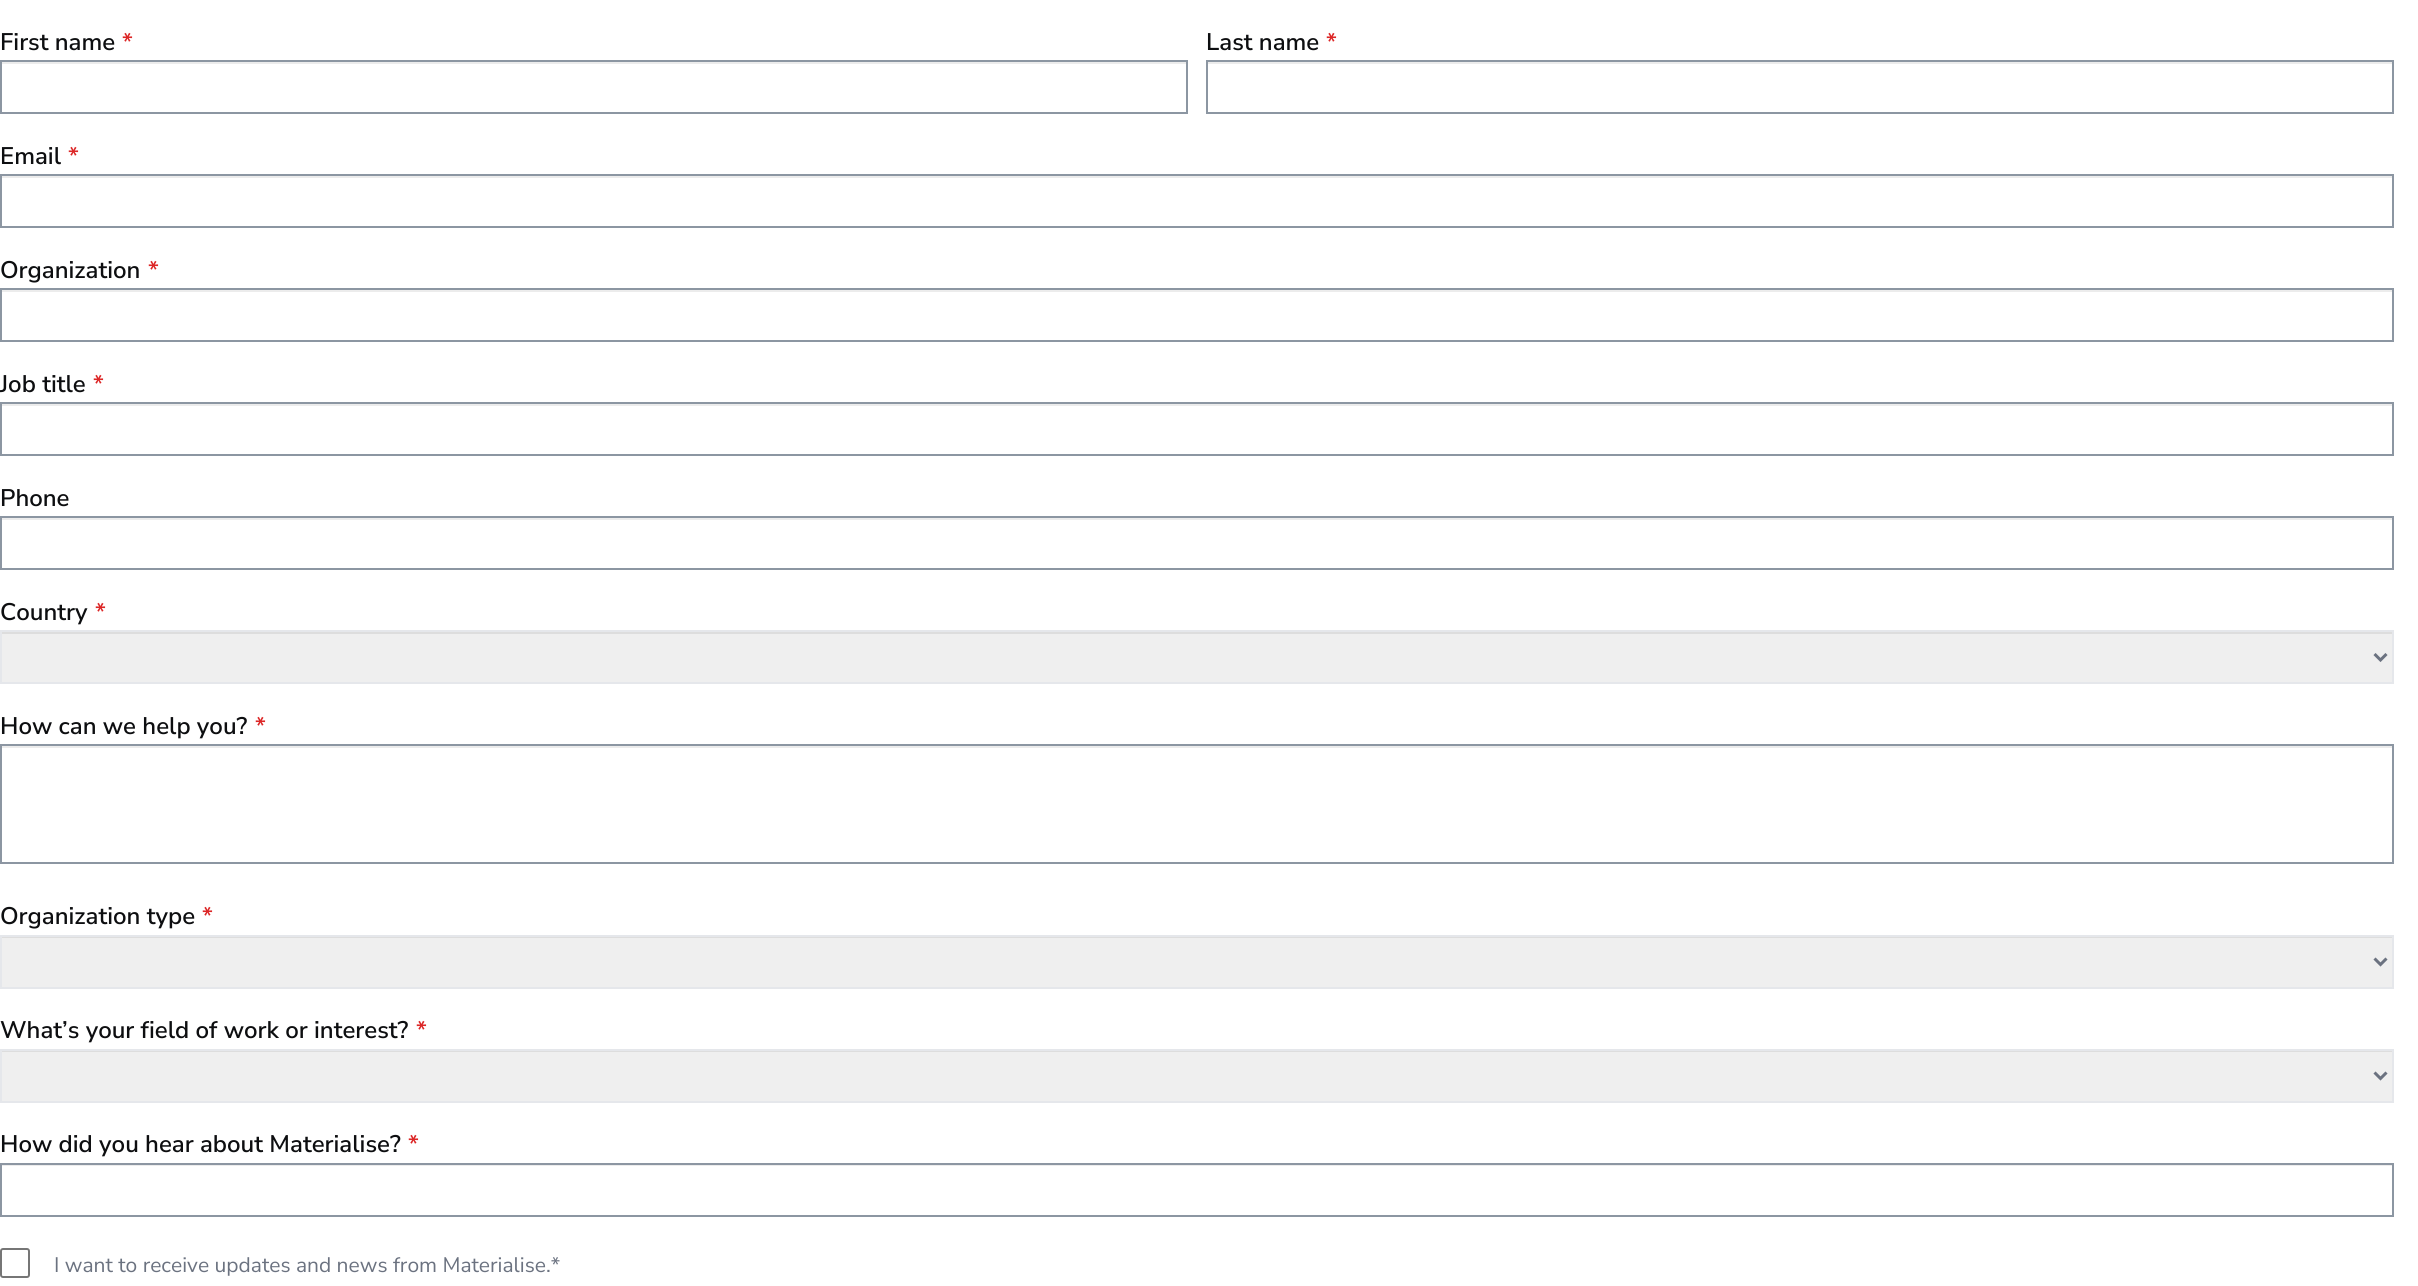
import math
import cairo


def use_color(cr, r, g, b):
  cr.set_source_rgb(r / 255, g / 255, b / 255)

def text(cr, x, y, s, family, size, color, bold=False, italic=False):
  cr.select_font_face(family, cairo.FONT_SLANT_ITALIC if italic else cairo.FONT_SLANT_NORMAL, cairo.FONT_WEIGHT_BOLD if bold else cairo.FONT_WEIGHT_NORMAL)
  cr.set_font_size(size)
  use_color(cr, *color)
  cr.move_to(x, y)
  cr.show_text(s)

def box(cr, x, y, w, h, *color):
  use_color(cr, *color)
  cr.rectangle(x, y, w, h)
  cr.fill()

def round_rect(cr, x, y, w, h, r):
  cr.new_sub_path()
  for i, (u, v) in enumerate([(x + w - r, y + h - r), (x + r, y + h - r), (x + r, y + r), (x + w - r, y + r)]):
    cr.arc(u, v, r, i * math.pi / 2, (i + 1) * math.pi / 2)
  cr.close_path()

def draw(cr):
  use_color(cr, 255, 255, 255)
  cr.paint()
  box(cr, 2, 62, 1185, 2, 236, 236, 236)
  cr.rectangle(1, 61, 1186, 52)
  use_color(cr, 140, 150, 162)
  cr.stroke()
  box(cr, 1208, 62, 1185, 2, 236, 236, 236)
  cr.rectangle(1207, 61, 1186, 52)
  use_color(cr, 140, 150, 162)
  cr.stroke()
  box(cr, 2, 176, 2391, 2, 236, 236, 236)
  cr.rectangle(1, 175, 2392, 52)
  use_color(cr, 140, 150, 162)
  cr.stroke()
  box(cr, 2, 290, 2391, 2, 236, 236, 236)
  cr.rectangle(1, 289, 2392, 52)
  use_color(cr, 140, 150, 162)
  cr.stroke()
  box(cr, 2, 404, 2391, 2, 236, 236, 236)
  cr.rectangle(1, 403, 2392, 52)
  use_color(cr, 140, 150, 162)
  cr.stroke()
  box(cr, 2, 518, 2391, 2, 236, 236, 236)
  cr.rectangle(1, 517, 2392, 52)
  use_color(cr, 140, 150, 162)
  cr.stroke()
  box(cr, 2, 634, 2390, 48, 239, 239, 239)
  box(cr, 2, 632, 2391, 2, 221, 221, 221)
  cr.rectangle(1, 631, 2392, 52)
  use_color(cr, 229, 231, 235)
  cr.stroke()
  cr.new_path()
  cr.move_to(2374.5, 654)
  cr.line_to(2380.5, 660)
  cr.line_to(2386.5, 654)
  use_color(cr, 107, 114, 128)
  cr.set_line_width(3)
  cr.stroke()
  box(cr, 2, 746, 2391, 2, 236, 236, 236)
  cr.rectangle(1, 745, 2392, 118)
  use_color(cr, 140, 150, 162)
  cr.set_line_width(2)
  cr.stroke()
  box(cr, 2, 938, 2390, 49, 239, 239, 239)
  box(cr, 2, 937, 2391, 1, 221, 221, 221)
  cr.rectangle(1, 936, 2392, 52)
  use_color(cr, 229, 231, 235)
  cr.stroke()
  cr.new_path()
  cr.move_to(2374.5, 958.5)
  cr.line_to(2380.5, 964.5)
  cr.line_to(2386.5, 958.5)
  use_color(cr, 107, 114, 128)
  cr.set_line_width(3)
  cr.stroke()
  box(cr, 2, 1052, 2390, 49, 239, 239, 239)
  box(cr, 2, 1051, 2391, 1, 221, 221, 221)
  cr.rectangle(1, 1050, 2392, 52)
  use_color(cr, 229, 231, 235)
  cr.set_line_width(2)
  cr.stroke()
  cr.new_path()
  cr.move_to(2374.5, 1072.5)
  cr.line_to(2380.5, 1078.5)
  cr.line_to(2386.5, 1072.5)
  use_color(cr, 107, 114, 128)
  cr.set_line_width(3)
  cr.stroke()
  box(cr, 2, 1165, 2391, 1, 236, 236, 236)
  cr.rectangle(1, 1164, 2392, 52)
  use_color(cr, 140, 150, 162)
  cr.set_line_width(2)
  cr.stroke()
  round_rect(cr, 1, 1249, 28, 28, 2)
  use_color(cr, 118, 118, 118)
  cr.stroke()
  text(cr, 0, 50, "First name", "Nunito Sans SemiBold", 24, (13, 14, 16))
  text(cr, 122, 50, "*", "Nunito Sans SemiBold", 24, (220, 38, 38))
  text(cr, 1206, 50, "Last name", "Nunito Sans SemiBold", 24, (13, 14, 16))
  text(cr, 1326, 50, "*", "Nunito Sans SemiBold", 24, (220, 38, 38))
  text(cr, 0, 164, "Email", "Nunito Sans SemiBold", 24, (13, 14, 16))
  text(cr, 68, 164, "*", "Nunito Sans SemiBold", 24, (220, 38, 38))
  text(cr, 0, 278, "Organization", "Nunito Sans SemiBold", 24, (13, 14, 16))
  text(cr, 148, 278, "*", "Nunito Sans SemiBold", 24, (220, 38, 38))
  text(cr, 0, 392, "Job title", "Nunito Sans SemiBold", 24, (13, 14, 16))
  text(cr, 93, 392, "*", "Nunito Sans SemiBold", 24, (220, 38, 38))
  text(cr, 0, 506, "Phone", "Nunito Sans SemiBold", 24, (13, 14, 16))
  text(cr, 0, 620, "Сountry", "Nunito Sans SemiBold", 24, (13, 14, 16))
  text(cr, 95, 620, "*", "Nunito Sans SemiBold", 24, (220, 38, 38))
  text(cr, 0, 734, "How can we help you?", "Nunito Sans SemiBold", 24, (13, 14, 16))
  text(cr, 255, 734, "*", "Nunito Sans SemiBold", 24, (220, 38, 38))
  text(cr, 0, 924, "Organization type", "Nunito Sans SemiBold", 24, (13, 14, 16))
  text(cr, 202, 924, "*", "Nunito Sans SemiBold", 24, (220, 38, 38))
  text(cr, 0, 1038, "What’s your field of work or interest?", "Nunito Sans SemiBold", 24, (13, 14, 16))
  text(cr, 416, 1038, "*", "Nunito Sans SemiBold", 24, (220, 38, 38))
  text(cr, 0, 1152, "How did you hear about Materialise?", "Nunito Sans SemiBold", 24, (13, 14, 16))
  text(cr, 408, 1152, "*", "Nunito Sans SemiBold", 24, (220, 38, 38))
  text(cr, 54, 1272, "I want to receive updates and news from Materialise.*", "Nunito Sans", 21, (107, 114, 128))


surface = cairo.ImageSurface(cairo.FORMAT_RGB24, 2418, 1286)
cr = cairo.Context(surface)
options = cairo.FontOptions()
options.set_hint_metrics(cairo.HINT_METRICS_OFF)
options.set_hint_style(cairo.HINT_STYLE_NONE)
cr.set_font_options(options)
cr.set_miter_limit(4)
draw(cr)
surface.write_to_png("out.png")
